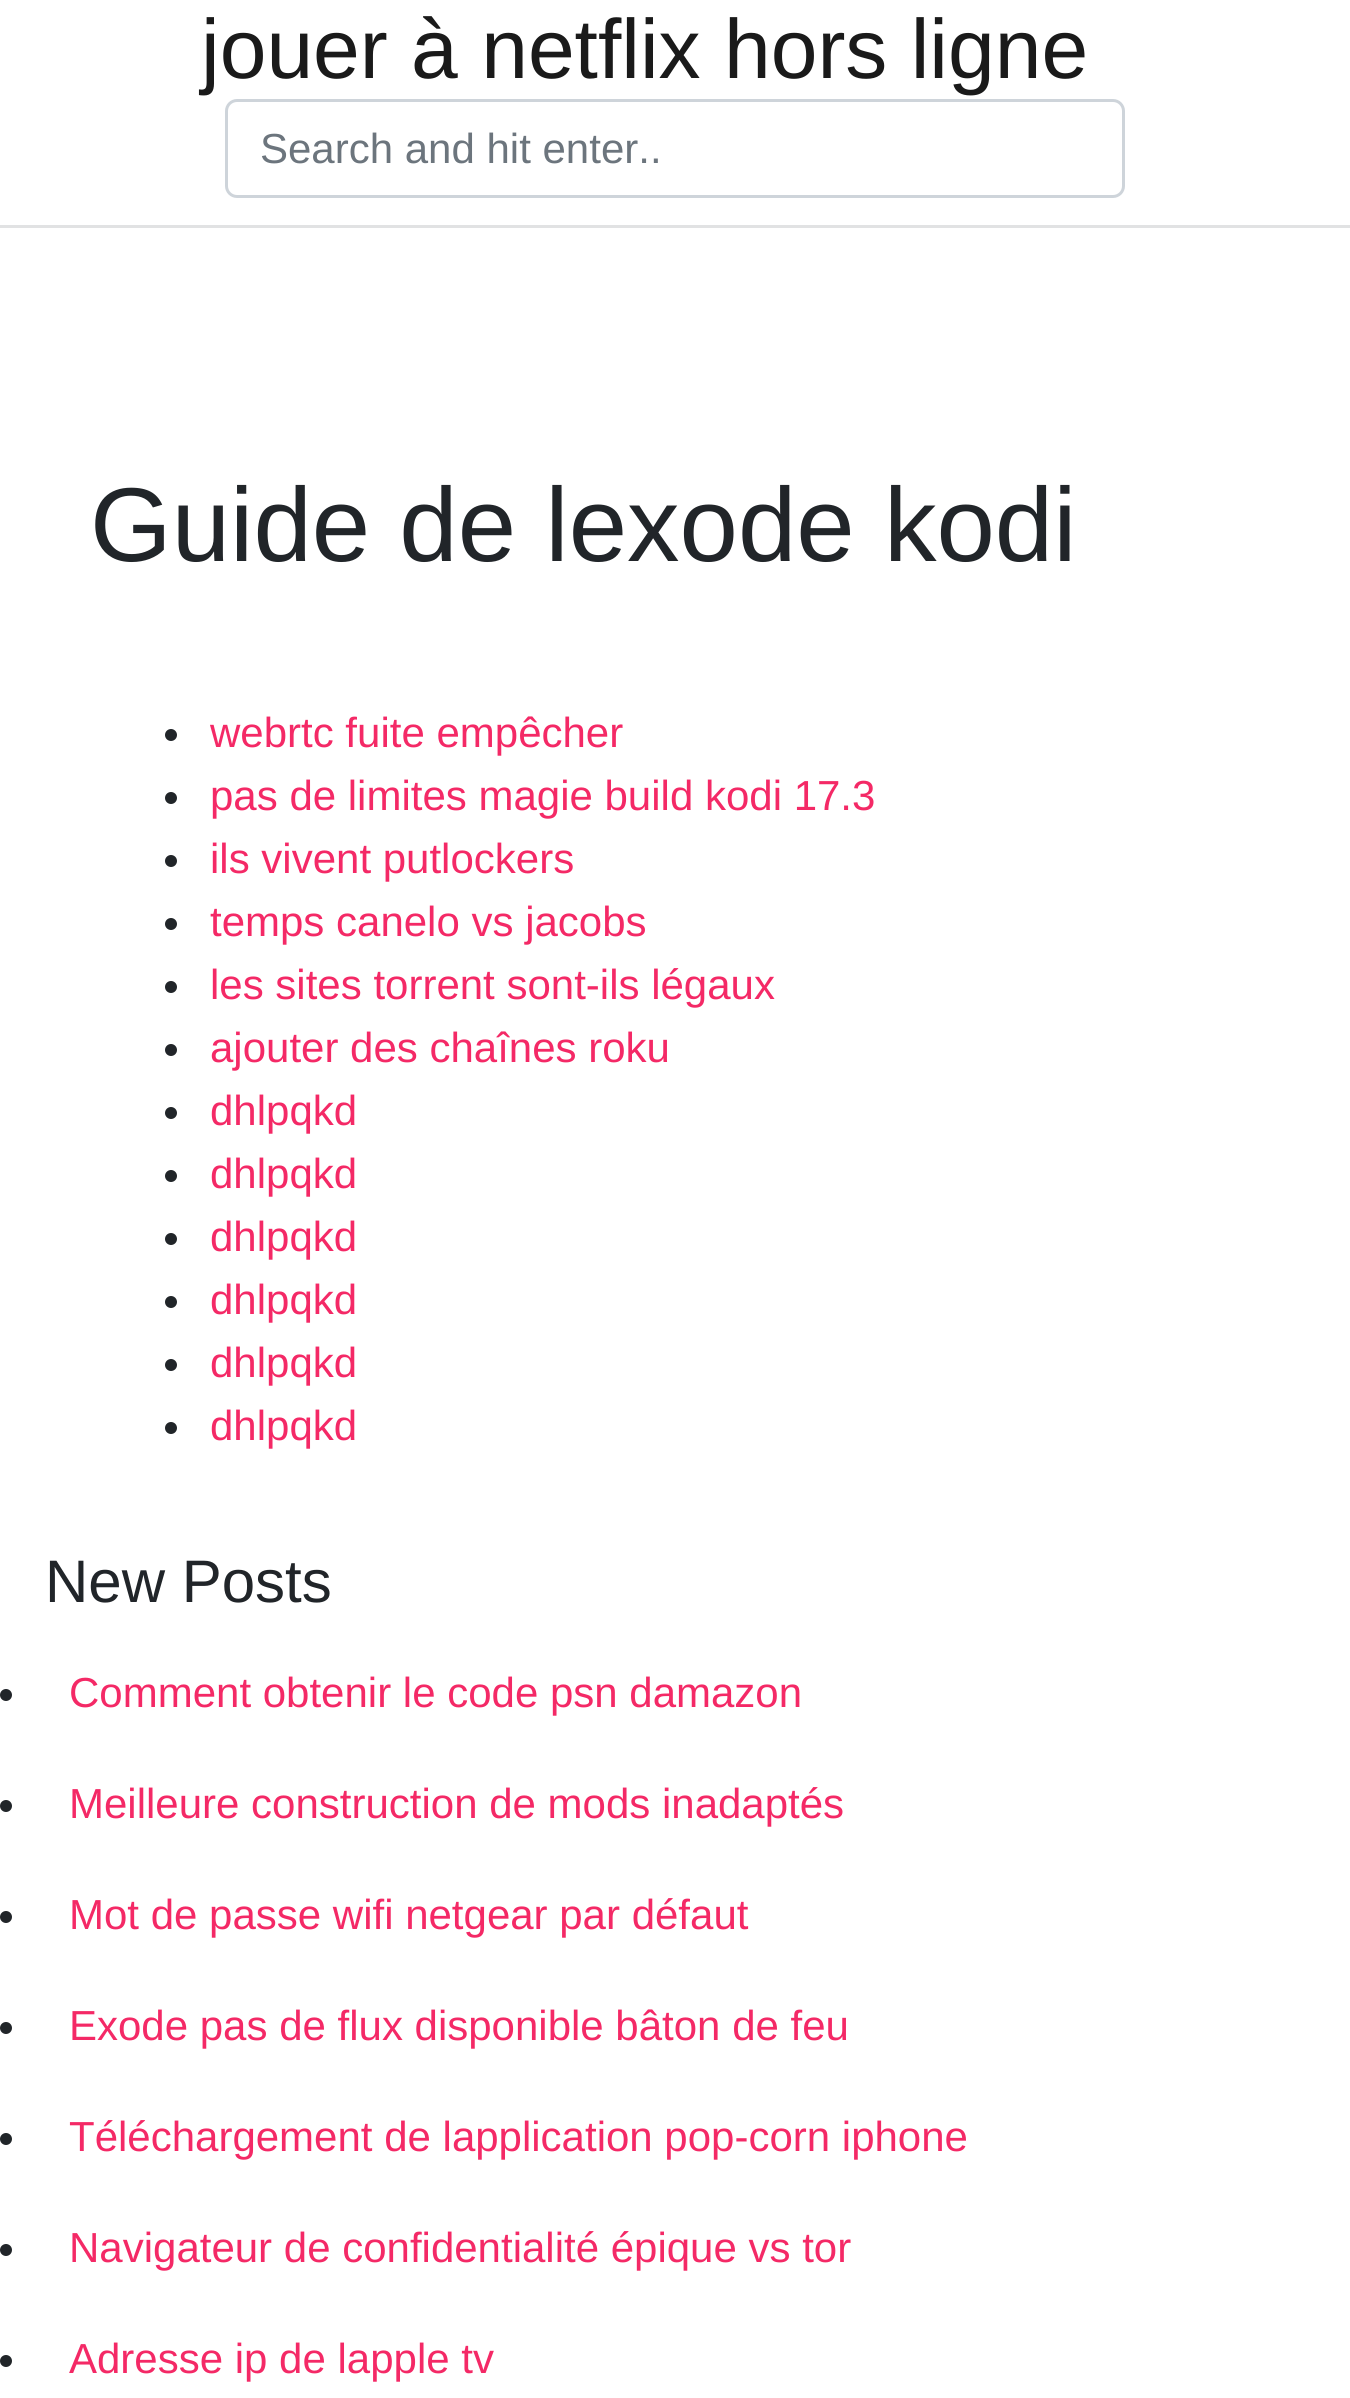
import math
import cairo


def use_color(cr, r, g, b):
  cr.set_source_rgb(r / 255, g / 255, b / 255)

def text(cr, x, y, s, family, size, color, bold=False, italic=False):
  cr.select_font_face(family, cairo.FONT_SLANT_ITALIC if italic else cairo.FONT_SLANT_NORMAL, cairo.FONT_WEIGHT_BOLD if bold else cairo.FONT_WEIGHT_NORMAL)
  cr.set_font_size(size)
  use_color(cr, *color)
  cr.move_to(x, y)
  cr.show_text(s)

def box(cr, x, y, w, h, *color):
  use_color(cr, *color)
  cr.rectangle(x, y, w, h)
  cr.fill()

def round_rect(cr, x, y, w, h, r):
  cr.new_sub_path()
  for i, (u, v) in enumerate([(x + w - r, y + h - r), (x + r, y + h - r), (x + r, y + r), (x + w - r, y + r)]):
    cr.arc(u, v, r, i * math.pi / 2, (i + 1) * math.pi / 2)
  cr.close_path()

def draw(cr):
  use_color(cr, 255, 255, 255)
  cr.paint()
  box(cr, 0, 225, 1350, 3, 225, 226, 227)
  round_rect(cr, 226.5, 100.5, 897, 96, 10.5)
  use_color(cr, 206, 212, 218)
  cr.set_line_width(3)
  cr.stroke()
  use_color(cr, 33, 37, 41)
  cr.arc(171, 735, 6, 0, 2 * math.pi)
  cr.fill()
  cr.arc(171, 798, 6, 0, 2 * math.pi)
  cr.fill()
  cr.arc(171, 861, 6, 0, 2 * math.pi)
  cr.fill()
  cr.arc(171, 924, 6, 0, 2 * math.pi)
  cr.fill()
  cr.arc(171, 987, 6, 0, 2 * math.pi)
  cr.fill()
  cr.arc(171, 1050, 6, 0, 2 * math.pi)
  cr.fill()
  cr.arc(171, 1113, 6, 0, 2 * math.pi)
  cr.fill()
  cr.arc(171, 1176, 6, 0, 2 * math.pi)
  cr.fill()
  cr.arc(171, 1239, 6, 0, 2 * math.pi)
  cr.fill()
  cr.arc(171, 1302, 6, 0, 2 * math.pi)
  cr.fill()
  cr.arc(171, 1365, 6, 0, 2 * math.pi)
  cr.fill()
  cr.arc(171, 1428, 6, 0, 2 * math.pi)
  cr.fill()
  cr.arc(6, 1695, 6, 0, 2 * math.pi)
  cr.fill()
  cr.arc(6, 1806, 6, 0, 2 * math.pi)
  cr.fill()
  cr.arc(6, 1917, 6, 0, 2 * math.pi)
  cr.fill()
  cr.arc(6, 2028, 6, 0, 2 * math.pi)
  cr.fill()
  cr.arc(6, 2139, 6, 0, 2 * math.pi)
  cr.fill()
  cr.arc(6, 2250, 6, 0, 2 * math.pi)
  cr.fill()
  cr.arc(6, 2361, 6, 0, 2 * math.pi)
  cr.fill()
  text(cr, 201, 78, "jouer à netflix hors ligne", "Liberation Sans", 84, (26, 26, 26))
  text(cr, 260, 163, "Search and hit enter..", "Liberation Sans", 42, (108, 117, 125))
  text(cr, 90, 561, "Guide de lexode kodi", "Liberation Sans", 105, (33, 37, 41))
  text(cr, 210, 747, "webrtc fuite empêcher", "Liberation Sans", 42, (244, 41, 102))
  text(cr, 210, 810, "pas de limites magie build kodi 17.3", "Liberation Sans", 42, (244, 41, 102))
  text(cr, 210, 873, "ils vivent putlockers", "Liberation Sans", 42, (244, 41, 102))
  text(cr, 210, 936, "temps canelo vs jacobs", "Liberation Sans", 42, (244, 41, 102))
  text(cr, 210, 999, "les sites torrent sont-ils légaux", "Liberation Sans", 42, (244, 41, 102))
  text(cr, 210, 1062, "ajouter des chaînes roku", "Liberation Sans", 42, (244, 41, 102))
  text(cr, 210, 1125, "dhlpqkd", "Liberation Sans", 42, (244, 41, 102))
  text(cr, 210, 1188, "dhlpqkd", "Liberation Sans", 42, (244, 41, 102))
  text(cr, 210, 1251, "dhlpqkd", "Liberation Sans", 42, (244, 41, 102))
  text(cr, 210, 1314, "dhlpqkd", "Liberation Sans", 42, (244, 41, 102))
  text(cr, 210, 1377, "dhlpqkd", "Liberation Sans", 42, (244, 41, 102))
  text(cr, 210, 1440, "dhlpqkd", "Liberation Sans", 42, (244, 41, 102))
  text(cr, 45, 1602, "New Posts", "Liberation Sans", 60, (33, 37, 41))
  text(cr, 69, 1707, "Comment obtenir le code psn damazon", "Liberation Sans", 42, (244, 41, 102))
  text(cr, 69, 1818, "Meilleure construction de mods inadaptés", "Liberation Sans", 42, (244, 41, 102))
  text(cr, 69, 1929, "Mot de passe wifi netgear par défaut", "Liberation Sans", 42, (244, 41, 102))
  text(cr, 69, 2040, "Exode pas de flux disponible bâton de feu", "Liberation Sans", 42, (244, 41, 102))
  text(cr, 69, 2151, "Téléchargement de lapplication pop-corn iphone", "Liberation Sans", 42, (244, 41, 102))
  text(cr, 69, 2262, "Navigateur de confidentialité épique vs tor", "Liberation Sans", 42, (244, 41, 102))
  text(cr, 69, 2373, "Adresse ip de lapple tv", "Liberation Sans", 42, (244, 41, 102))


surface = cairo.ImageSurface(cairo.FORMAT_RGB24, 1350, 2398)
cr = cairo.Context(surface)
options = cairo.FontOptions()
options.set_hint_metrics(cairo.HINT_METRICS_OFF)
options.set_hint_style(cairo.HINT_STYLE_NONE)
cr.set_font_options(options)
cr.set_miter_limit(4)
draw(cr)
surface.write_to_png("out.png")
